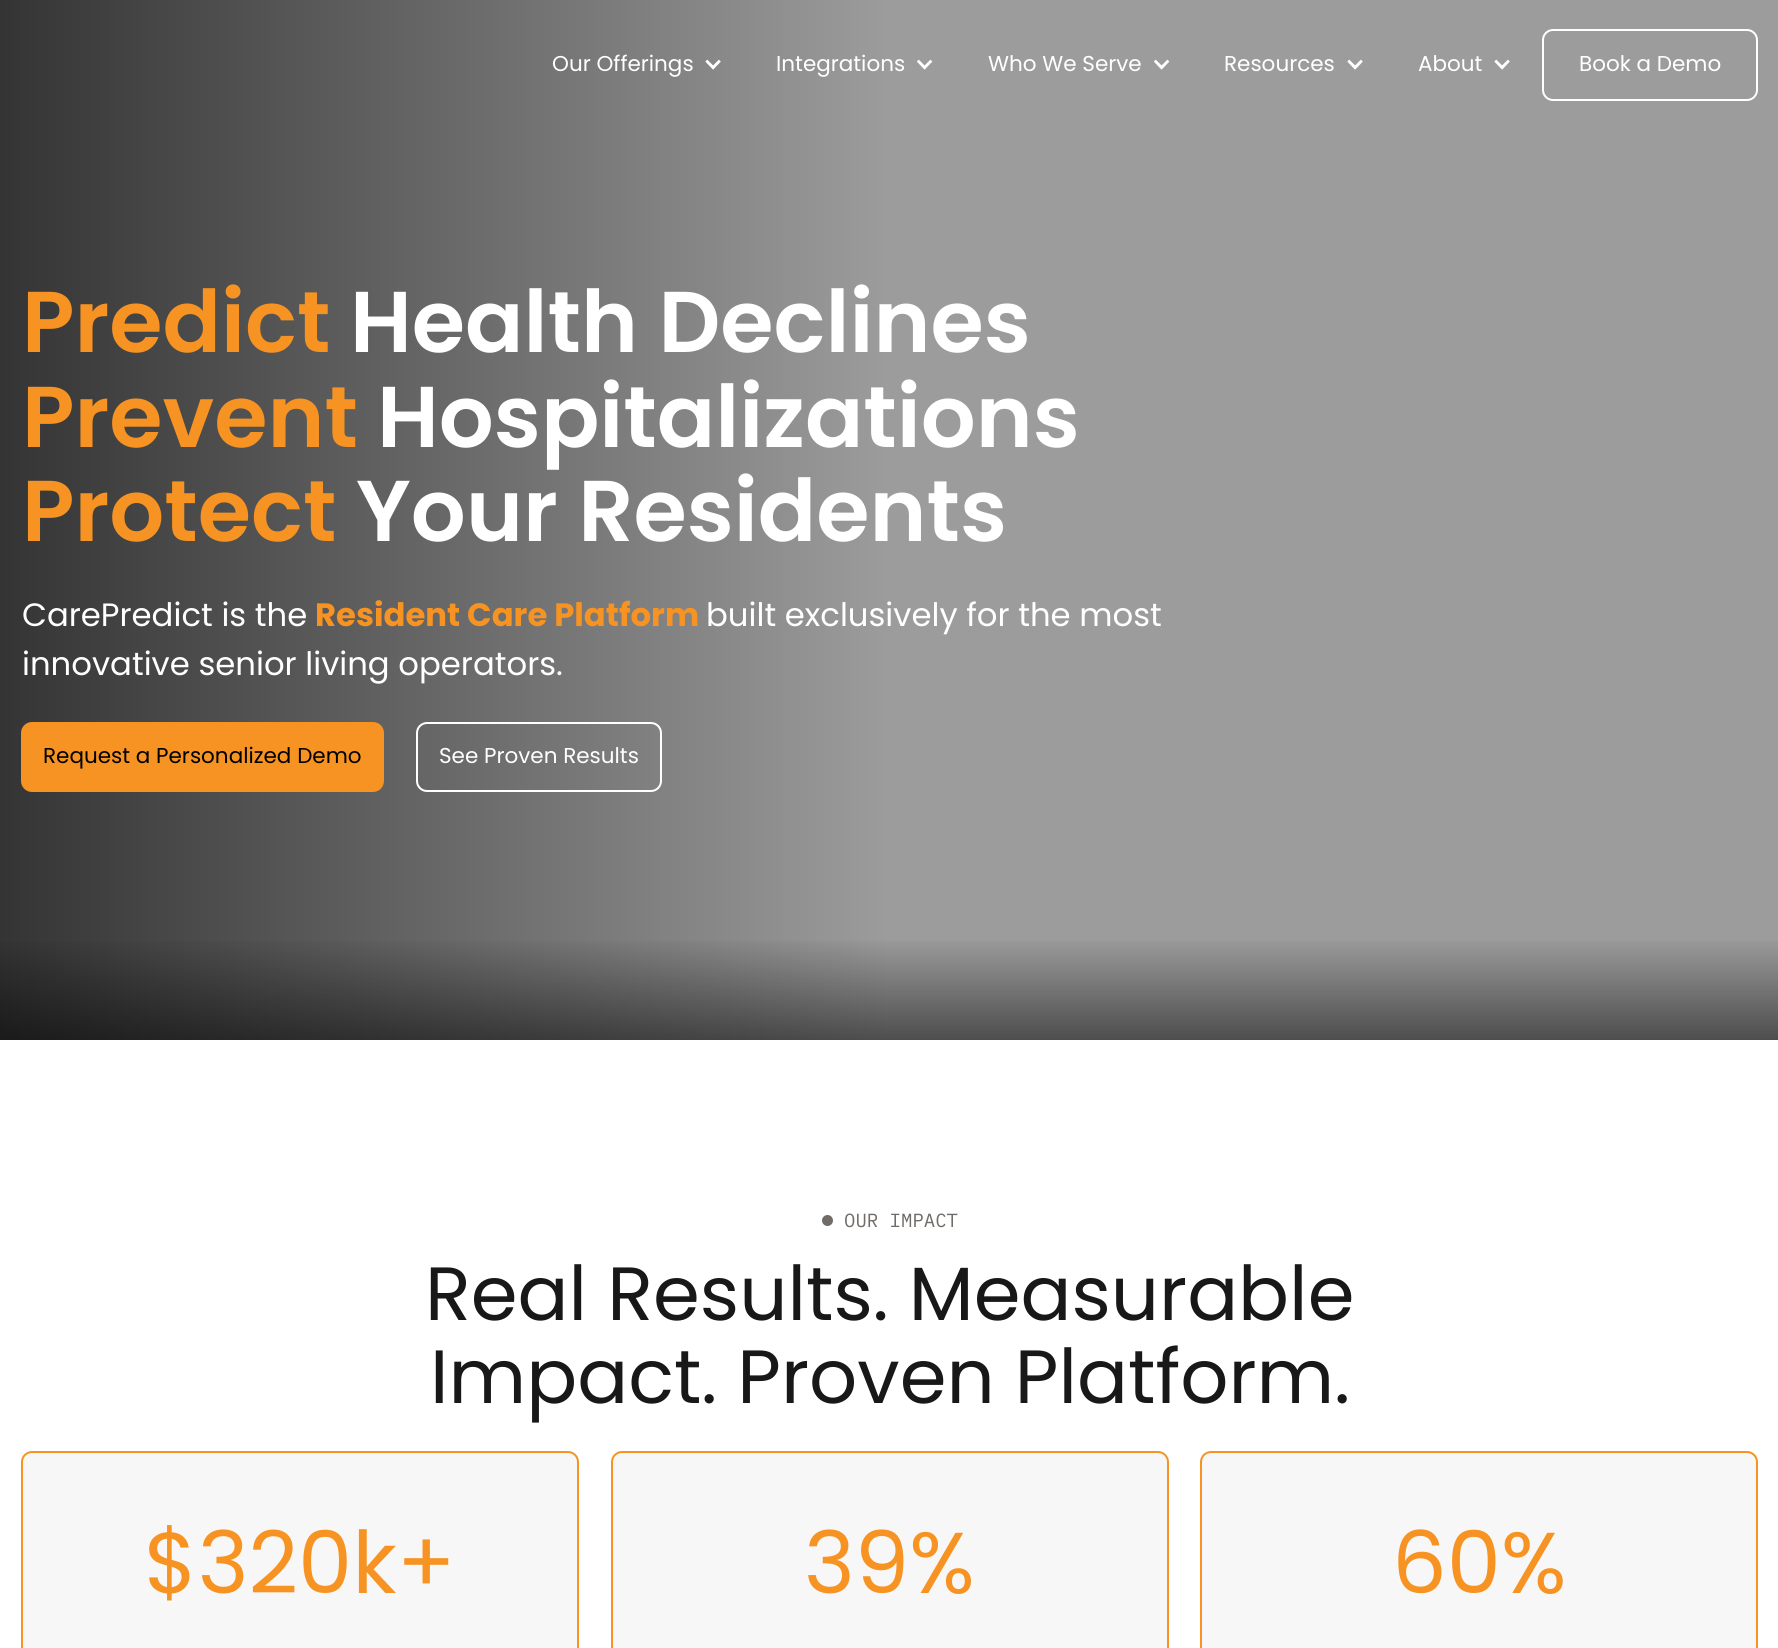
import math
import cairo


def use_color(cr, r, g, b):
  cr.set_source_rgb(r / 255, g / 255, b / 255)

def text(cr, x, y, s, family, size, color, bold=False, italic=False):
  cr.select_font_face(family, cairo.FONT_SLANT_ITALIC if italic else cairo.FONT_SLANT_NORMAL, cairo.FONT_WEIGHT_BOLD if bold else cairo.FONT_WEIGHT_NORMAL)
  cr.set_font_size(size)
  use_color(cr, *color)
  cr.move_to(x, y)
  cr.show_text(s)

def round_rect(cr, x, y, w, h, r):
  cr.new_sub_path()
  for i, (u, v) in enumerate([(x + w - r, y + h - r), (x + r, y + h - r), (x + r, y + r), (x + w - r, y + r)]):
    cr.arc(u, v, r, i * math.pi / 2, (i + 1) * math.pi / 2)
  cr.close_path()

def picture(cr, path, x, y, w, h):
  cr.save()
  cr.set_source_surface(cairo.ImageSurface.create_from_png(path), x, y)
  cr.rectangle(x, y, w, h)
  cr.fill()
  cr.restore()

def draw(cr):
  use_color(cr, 255, 255, 255)
  cr.paint()
  gradient = cairo.LinearGradient(0, 520, 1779, 520)
  gradient.add_color_stop_rgba(0, 0.204, 0.204, 0.204, 1)
  gradient.add_color_stop_rgba(0.5, 0.612, 0.612, 0.612, 1)
  cr.set_source(gradient)
  cr.rectangle(0, 0, 1778, 1040)
  cr.fill()
  picture(cr, "img_01.png", 705, 59, 16, 11)
  picture(cr, "img_02.png", 917, 59, 16, 11)
  picture(cr, "img_02.png", 1154, 59, 16, 11)
  picture(cr, "img_03.png", 1347, 59, 16, 11)
  picture(cr, "img_03.png", 1494, 59, 16, 11)
  round_rect(cr, 1543, 30, 214, 70, 10)
  use_color(cr, 255, 255, 255)
  cr.stroke()
  use_color(cr, 246, 147, 34)
  round_rect(cr, 21, 722, 363, 70, 11)
  cr.fill()
  round_rect(cr, 417, 723, 244, 68, 10)
  use_color(cr, 255, 255, 255)
  cr.stroke()
  gradient = cairo.LinearGradient(890, 1040, 890, 833)
  gradient.add_color_stop_rgba(0, 0, 0, 0, 0.5)
  gradient.add_color_stop_rgba(0.5, 0, 0, 0, 0)
  cr.set_source(gradient)
  cr.rectangle(0, 941, 1778, 99)
  cr.fill()
  use_color(cr, 113, 108, 103)
  cr.arc(827.5, 1220.5, 5.5, 0, 2 * math.pi)
  cr.fill()
  use_color(cr, 247, 247, 247)
  round_rect(cr, 22, 1452, 556, 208, 10)
  cr.fill_preserve()
  use_color(cr, 246, 147, 34)
  cr.stroke()
  use_color(cr, 247, 247, 247)
  round_rect(cr, 612, 1452, 556, 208, 10)
  cr.fill_preserve()
  use_color(cr, 246, 147, 34)
  cr.stroke()
  use_color(cr, 247, 247, 247)
  round_rect(cr, 1201, 1452, 556, 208, 10)
  cr.fill_preserve()
  use_color(cr, 246, 147, 34)
  cr.stroke()
  text(cr, 552, 71, "Our Offerings", "Poppins", 21.5, (255, 255, 255))
  text(cr, 776, 71, "Integrations", "Poppins", 21.5, (255, 255, 255))
  text(cr, 988, 71, "Who We Serve", "Poppins", 21.5, (255, 255, 255))
  text(cr, 1224, 71, "Resources", "Poppins", 21.5, (255, 255, 255))
  text(cr, 1418, 71, "About", "Poppins", 21.5, (255, 255, 255))
  text(cr, 1579, 71, "Book a Demo", "Poppins", 21.5, (255, 255, 255))
  text(cr, 22, 352, "Predict", "Poppins SemiBold", 86.25, (246, 147, 34))
  text(cr, 350, 352, "Health Declines", "Poppins SemiBold", 86.25, (255, 255, 255))
  text(cr, 22, 447, "Prevent", "Poppins SemiBold", 86.25, (246, 147, 34))
  text(cr, 377, 447, "Hospitalizations", "Poppins SemiBold", 86.25, (255, 255, 255))
  text(cr, 22, 541, "Protect", "Poppins SemiBold", 86.25, (246, 147, 34))
  text(cr, 356, 541, "Your Residents", "Poppins SemiBold", 86.25, (255, 255, 255))
  text(cr, 22, 626, "CarePredict is the", "Poppins", 32.3, (255, 255, 255))
  text(cr, 315, 626, "Resident Care Platform", "Poppins", 32.3, (246, 147, 34), bold=True)
  text(cr, 706, 626, "built exclusively for the most", "Poppins", 32.3, (255, 255, 255))
  text(cr, 22, 675, "innovative senior living operators.", "Poppins", 32.3, (255, 255, 255))
  text(cr, 43, 763, "Request a Personalized Demo", "Poppins", 21.5, (0, 0, 0))
  text(cr, 439, 763, "See Proven Results", "Poppins", 21.5, (255, 255, 255))
  text(cr, 844, 1227, "OUR IMPACT", "IBM Plex Mono", 19, (113, 108, 103))
  text(cr, 425, 1320, "Real Results. Measurable", "Poppins", 75.4, (24, 24, 24))
  text(cr, 430, 1403, "Impact. Proven Platform.", "Poppins", 75.4, (24, 24, 24))
  text(cr, 144, 1593, "$320k+", "Poppins", 86.25, (246, 147, 34))
  text(cr, 804, 1593, "39%", "Poppins", 86.25, (246, 147, 34))
  text(cr, 1392, 1593, "60%", "Poppins", 86.25, (246, 147, 34))


surface = cairo.ImageSurface(cairo.FORMAT_RGB24, 1778, 1648)
cr = cairo.Context(surface)
options = cairo.FontOptions()
options.set_hint_metrics(cairo.HINT_METRICS_OFF)
options.set_hint_style(cairo.HINT_STYLE_NONE)
cr.set_font_options(options)
cr.set_miter_limit(4)
draw(cr)
surface.write_to_png("out.png")
